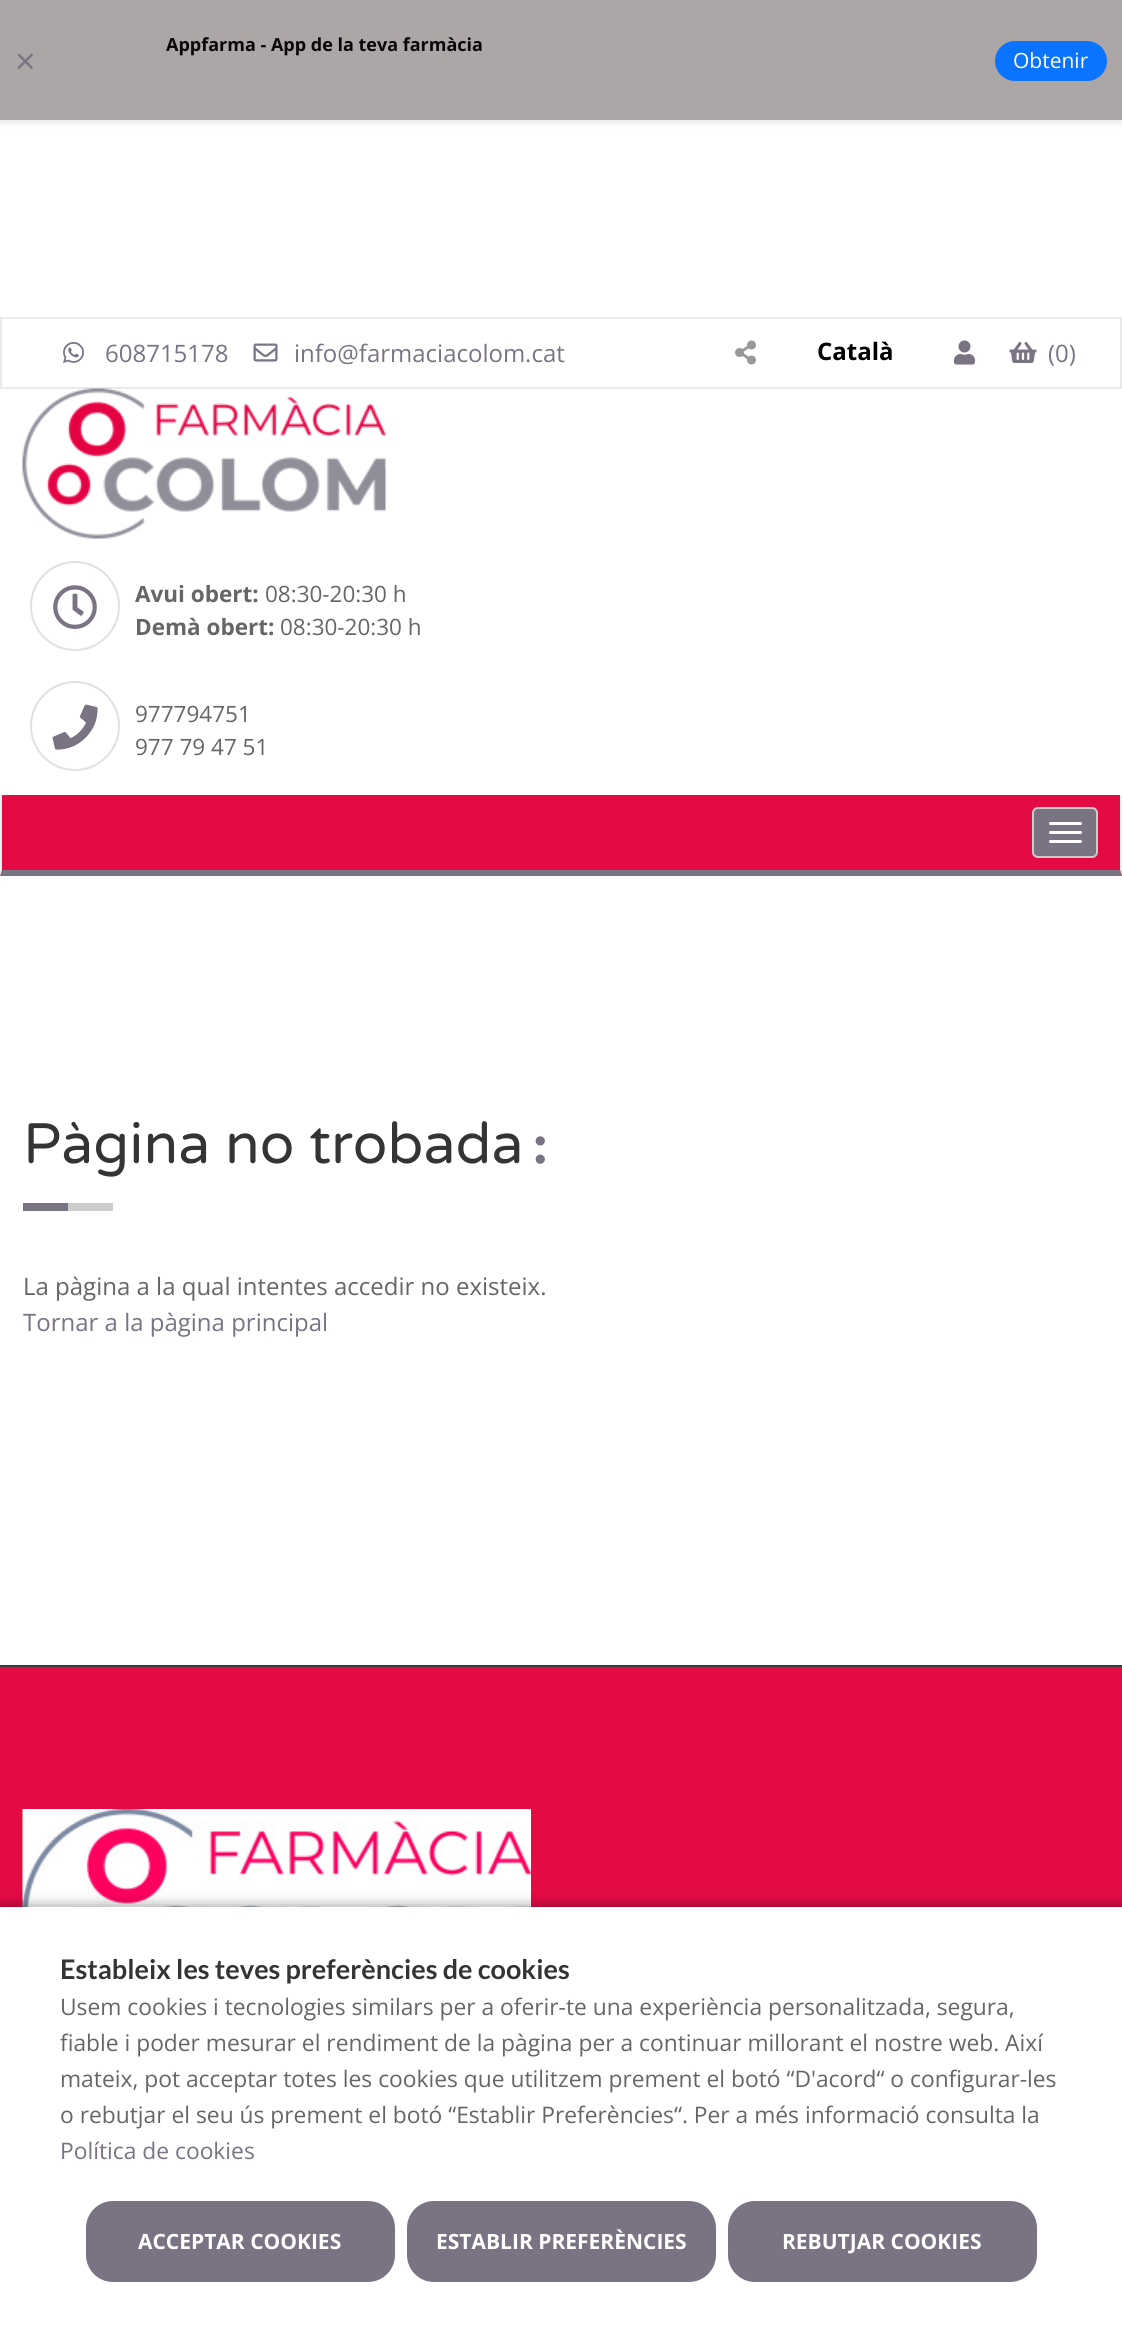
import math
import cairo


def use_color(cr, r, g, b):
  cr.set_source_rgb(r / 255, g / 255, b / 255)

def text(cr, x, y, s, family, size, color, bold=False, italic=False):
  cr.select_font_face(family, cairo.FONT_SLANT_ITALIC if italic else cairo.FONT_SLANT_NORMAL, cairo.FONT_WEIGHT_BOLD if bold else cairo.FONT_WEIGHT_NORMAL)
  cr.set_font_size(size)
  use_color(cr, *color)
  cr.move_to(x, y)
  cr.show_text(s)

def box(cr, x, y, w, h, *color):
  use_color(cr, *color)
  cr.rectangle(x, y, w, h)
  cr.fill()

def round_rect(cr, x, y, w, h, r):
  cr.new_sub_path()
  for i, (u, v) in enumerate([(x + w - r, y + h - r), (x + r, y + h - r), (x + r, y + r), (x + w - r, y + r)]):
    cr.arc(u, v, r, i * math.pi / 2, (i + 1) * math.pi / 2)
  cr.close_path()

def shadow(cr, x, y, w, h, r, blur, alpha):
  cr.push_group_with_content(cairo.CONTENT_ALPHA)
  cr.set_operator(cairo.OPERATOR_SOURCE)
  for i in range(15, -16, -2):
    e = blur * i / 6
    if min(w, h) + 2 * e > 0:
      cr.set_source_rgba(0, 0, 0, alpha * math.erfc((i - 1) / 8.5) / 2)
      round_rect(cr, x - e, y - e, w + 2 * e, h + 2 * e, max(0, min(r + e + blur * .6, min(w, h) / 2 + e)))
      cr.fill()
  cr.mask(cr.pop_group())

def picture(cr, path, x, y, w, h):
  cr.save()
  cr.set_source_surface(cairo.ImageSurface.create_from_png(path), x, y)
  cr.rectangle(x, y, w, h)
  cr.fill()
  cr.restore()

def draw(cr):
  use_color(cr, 255, 255, 255)
  cr.paint()
  use_color(cr, 0, 0, 0)
  shadow(cr, 0, 3, 1122, 120, 0, 3, 0.1)
  box(cr, 0, 0, 1122, 120, 172, 166, 166)
  use_color(cr, 10, 115, 255)
  round_rect(cr, 995, 41, 112, 40, 20)
  cr.fill()
  cr.rectangle(1, 318, 1120, 70)
  use_color(cr, 234, 234, 234)
  cr.stroke()
  picture(cr, "img_01.png", 63, 342, 21, 21)
  picture(cr, "img_02.png", 253, 343, 25, 19)
  picture(cr, "img_03.png", 735, 340, 21, 25)
  picture(cr, "img_04.png", 954, 340, 21, 25)
  picture(cr, "img_05.png", 1009, 342, 28, 21)
  picture(cr, "img_06.png", 22, 388, 364, 151)
  cr.arc(75, 606, 44, 0, 2 * math.pi)
  use_color(cr, 225, 225, 225)
  cr.stroke()
  picture(cr, "img_07.png", 53, 585, 44, 44)
  cr.arc(75, 726, 44, 0, 2 * math.pi)
  cr.stroke()
  picture(cr, "img_08.png", 52, 704, 46, 46)
  box(cr, 0, 795, 1122, 81, 228, 11, 69)
  use_color(cr, 241, 241, 241)
  cr.new_path()
  cr.move_to(1122, 795)
  cr.line_to(1122, 876)
  cr.line_to(1120, 870)
  cr.line_to(1120, 795)
  cr.close_path()
  cr.fill()
  use_color(cr, 122, 115, 132)
  cr.new_path()
  cr.move_to(1122, 876)
  cr.line_to(0, 876)
  cr.line_to(2, 870)
  cr.line_to(1120, 870)
  cr.close_path()
  cr.fill()
  use_color(cr, 241, 241, 241)
  cr.new_path()
  cr.move_to(0, 876)
  cr.line_to(0, 795)
  cr.line_to(2, 795)
  cr.line_to(2, 870)
  cr.close_path()
  cr.fill()
  use_color(cr, 122, 115, 132)
  round_rect(cr, 1033, 808, 64, 49, 5)
  cr.fill_preserve()
  use_color(cr, 204, 204, 204)
  cr.stroke()
  use_color(cr, 255, 255, 255)
  round_rect(cr, 1049, 822, 33, 3, 1.5)
  cr.fill()
  round_rect(cr, 1049, 831, 33, 3, 1.5)
  cr.fill()
  round_rect(cr, 1049, 840, 33, 3, 1.5)
  cr.fill()
  box(cr, 68, 1203, 45, 8, 204, 204, 204)
  box(cr, 23, 1203, 45, 8, 122, 115, 132)
  box(cr, 0, 1667, 1122, 240, 228, 11, 69)
  box(cr, 0, 1665, 1122, 2, 58, 58, 58)
  picture(cr, "img_09.png", 22, 1809, 509, 98)
  use_color(cr, 0, 0, 0)
  shadow(cr, 0, 1908, 1122, 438, 0, 7.5, 0.5)
  box(cr, 0, 1907, 1122, 437, 255, 255, 255)
  use_color(cr, 122, 115, 132)
  round_rect(cr, 84.5, 2199.5, 312, 84, 28.5)
  cr.fill_preserve()
  use_color(cr, 255, 255, 255)
  cr.set_line_width(3)
  cr.stroke()
  use_color(cr, 122, 115, 132)
  round_rect(cr, 405.5, 2199.5, 312, 84, 28.5)
  cr.fill_preserve()
  use_color(cr, 255, 255, 255)
  cr.stroke()
  use_color(cr, 122, 115, 132)
  round_rect(cr, 726.5, 2199.5, 312, 84, 28.5)
  cr.fill_preserve()
  use_color(cr, 255, 255, 255)
  cr.stroke()
  text(cr, 166, 51, "Appfarma - App de la teva farmàcia", "Open Sans", 18, (7, 7, 7), bold=True)
  text(cr, 15, 74, "×", "Open Sans", 36, (122, 115, 132))
  text(cr, 1013, 68, "Obtenir", "Open Sans", 21, (255, 255, 255))
  text(cr, 105, 362, "608715178", "Open Sans", 24, (122, 115, 132))
  text(cr, 294, 362, "info@farmaciacolom.cat", "Open Sans", 24, (122, 115, 132))
  text(cr, 817, 360, "Català", "Open Sans", 24, (0, 0, 0), bold=True)
  text(cr, 1048, 362, "(0)", "Open Sans", 24, (122, 115, 132))
  text(cr, 135, 602, "Avui obert:", "Open Sans", 22.5, (102, 102, 102), bold=True)
  text(cr, 265, 602, "08:30-20:30 h", "Open Sans", 22.5, (102, 102, 102))
  text(cr, 135, 635, "Demà obert:", "Open Sans", 22.5, (102, 102, 102), bold=True)
  text(cr, 280, 635, "08:30-20:30 h", "Open Sans", 22.5, (102, 102, 102))
  text(cr, 135, 722, "977794751", "Open Sans", 22.5, (102, 102, 102))
  text(cr, 135, 755, "977 79 47 51", "Open Sans", 22.5, (102, 102, 102))
  text(cr, 23, 1163, "Pàgina no trobada", "Varela Round", 57, (52, 52, 52))
  text(cr, 531, 1163, ":", "Liberation Serif", 57, (122, 115, 132), bold=True)
  text(cr, 23, 1295, "La pàgina a la qual intentes accedir no existeix.", "Open Sans", 24, (102, 102, 102))
  text(cr, 23, 1331, "Tornar a la pàgina principal", "Open Sans", 24, (122, 115, 132))
  text(cr, 60, 1979, "Estableix les teves preferències de cookies", "Lato", 27, (52, 52, 52), bold=True)
  text(cr, 60, 2015, "Usem cookies i tecnologies similars per a oferir-te una experiència personalitzada, segura,", "Open Sans", 22.8, (102, 102, 102))
  text(cr, 60, 2051, "fiable i poder mesurar el rendiment de la pàgina per a continuar millorant el nostre web. Així", "Open Sans", 22.8, (102, 102, 102))
  text(cr, 60, 2087, "mateix, pot acceptar totes les cookies que utilitzem prement el botó “D'acord“ o configurar-les", "Open Sans", 22.8, (102, 102, 102))
  text(cr, 60, 2123, "o rebutjar el seu ús prement el botó “Establir Preferències“. Per a més informació consulta la", "Open Sans", 22.8, (102, 102, 102))
  text(cr, 60, 2159, "Política de cookies", "Open Sans", 22.8, (122, 115, 132))
  text(cr, 138, 2249, "ACCEPTAR COOKIES", "Open Sans", 21, (255, 255, 255), bold=True)
  text(cr, 436, 2249, "ESTABLIR PREFERÈNCIES", "Open Sans", 21, (255, 255, 255), bold=True)
  text(cr, 782, 2249, "REBUTJAR COOKIES", "Open Sans", 21, (255, 255, 255), bold=True)


surface = cairo.ImageSurface(cairo.FORMAT_RGB24, 1122, 2344)
cr = cairo.Context(surface)
options = cairo.FontOptions()
options.set_hint_metrics(cairo.HINT_METRICS_OFF)
options.set_hint_style(cairo.HINT_STYLE_NONE)
cr.set_font_options(options)
cr.set_miter_limit(4)
draw(cr)
surface.write_to_png("out.png")
